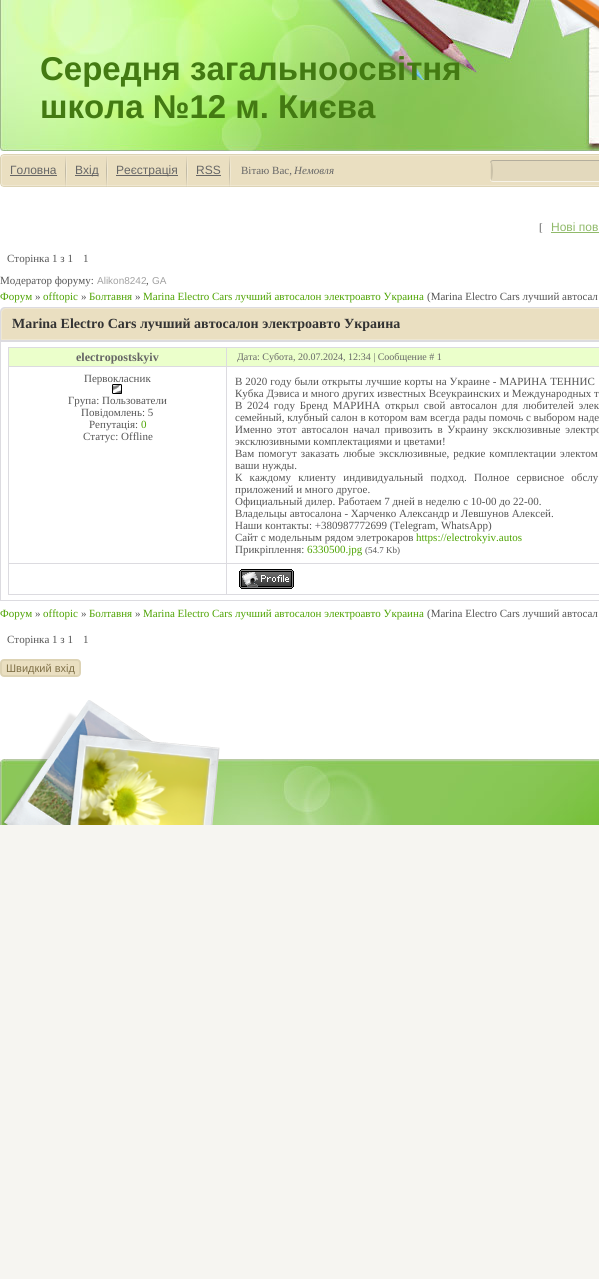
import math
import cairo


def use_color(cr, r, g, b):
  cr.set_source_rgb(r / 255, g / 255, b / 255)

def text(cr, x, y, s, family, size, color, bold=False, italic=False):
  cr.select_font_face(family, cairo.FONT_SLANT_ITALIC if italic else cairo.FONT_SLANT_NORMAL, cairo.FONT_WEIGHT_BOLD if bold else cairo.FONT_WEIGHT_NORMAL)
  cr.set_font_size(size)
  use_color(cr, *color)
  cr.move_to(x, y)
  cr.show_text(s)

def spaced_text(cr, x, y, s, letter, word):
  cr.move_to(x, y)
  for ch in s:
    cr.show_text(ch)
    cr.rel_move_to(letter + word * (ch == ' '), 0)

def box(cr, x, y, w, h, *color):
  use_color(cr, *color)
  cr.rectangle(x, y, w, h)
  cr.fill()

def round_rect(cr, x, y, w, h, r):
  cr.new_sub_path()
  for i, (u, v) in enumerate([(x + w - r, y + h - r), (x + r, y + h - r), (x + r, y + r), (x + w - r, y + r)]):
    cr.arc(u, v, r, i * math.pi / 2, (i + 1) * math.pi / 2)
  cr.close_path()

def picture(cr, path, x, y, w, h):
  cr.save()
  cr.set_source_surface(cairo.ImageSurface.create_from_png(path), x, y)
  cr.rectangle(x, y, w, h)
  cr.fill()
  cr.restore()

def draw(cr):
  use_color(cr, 246, 245, 241)
  cr.paint()
  box(cr, 0, 151, 599, 608, 255, 255, 255)
  picture(cr, "img_01.png", 0, 0, 599, 151)
  picture(cr, "img_02.png", 557, 0, 42, 32)
  picture(cr, "img_03.png", 0, 154, 599, 33)
  picture(cr, "img_04.png", 65, 156, 2, 31)
  box(cr, 10, 175, 47, 1, 102, 102, 102)
  picture(cr, "img_04.png", 106, 156, 2, 31)
  box(cr, 75, 175, 23, 1, 102, 102, 102)
  picture(cr, "img_04.png", 186, 156, 2, 31)
  box(cr, 116, 175, 62, 1, 102, 102, 102)
  picture(cr, "img_04.png", 229, 156, 2, 31)
  box(cr, 196, 175, 25, 1, 102, 102, 102)
  picture(cr, "img_05.png", 490, 160, 109, 22)
  box(cr, 551, 232, 48, 1, 144, 186, 106)
  use_color(cr, 220, 219, 224)
  cr.new_path()
  cr.move_to(5, 307)
  cr.line_to(599, 307)
  cr.curve_to(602, 307, 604, 309, 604, 312)
  cr.line_to(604, 601)
  cr.line_to(0, 601)
  cr.line_to(0, 312)
  cr.curve_to(0, 309, 2, 307, 5, 307)
  cr.close_path()
  cr.fill()
  use_color(cr, 234, 223, 193)
  cr.new_path()
  cr.move_to(6, 308.5)
  cr.line_to(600, 308.5)
  cr.curve_to(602.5, 308.5, 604.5, 310.5, 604.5, 313)
  cr.line_to(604.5, 339.5)
  cr.line_to(1.5, 339.5)
  cr.line_to(1.5, 313)
  cr.curve_to(1.5, 310.5, 3.5, 308.5, 6, 308.5)
  cr.close_path()
  cr.fill_preserve()
  use_color(cr, 239, 231, 209)
  cr.set_line_width(1)
  cr.stroke()
  box(cr, 1, 342, 598, 258, 255, 255, 255)
  box(cr, 8, 347, 591, 248, 220, 219, 224)
  box(cr, 9, 348, 217, 18, 235, 255, 203)
  box(cr, 227, 348, 372, 18, 235, 255, 203)
  box(cr, 9, 367, 217, 196, 255, 255, 255)
  box(cr, 227, 367, 372, 196, 255, 255, 255)
  box(cr, 9, 564, 217, 30, 255, 255, 255)
  box(cr, 227, 564, 372, 30, 255, 255, 255)
  picture(cr, "img_07.png", 239, 569, 55, 20)
  use_color(cr, 234, 223, 193)
  round_rect(cr, 1, 660, 79, 16, 3)
  cr.fill_preserve()
  use_color(cr, 221, 211, 180)
  cr.set_line_width(2)
  cr.stroke()
  picture(cr, "img_08.png", 0, 759, 599, 66)
  picture(cr, "img_09.png", 1, 700, 219, 125)
  text(cr, 40, 80, "Середня загальноосвітня", "Liberation Sans", 33, (67, 122, 18), bold=True)
  text(cr, 40, 118, "школа №12 м. Києва", "Liberation Sans", 33, (67, 122, 18), bold=True)
  text(cr, 10, 174, "Головна", "Liberation Sans", 12, (102, 102, 102))
  text(cr, 75, 174, "Вхід", "Liberation Sans", 12, (102, 102, 102))
  text(cr, 116, 174, "Реєстрація", "Liberation Sans", 12, (102, 102, 102))
  text(cr, 196, 174, "RSS", "Liberation Sans", 12, (102, 102, 102))
  text(cr, 241, 174, "Вітаю Вас,", "Liberation Serif", 11, (102, 102, 102))
  text(cr, 294, 174, "Немовля", "Liberation Serif", 11, (102, 102, 102), italic=True)
  text(cr, 539, 231, "[", "Liberation Serif", 11, (85, 85, 85))
  text(cr, 551, 231, "Нові пов", "Liberation Sans", 12, (144, 186, 106))
  text(cr, 7, 262, "Сторінка 1 з 1", "Liberation Serif", 11, (85, 85, 85))
  text(cr, 83, 262, "1", "Liberation Serif", 11, (85, 85, 85))
  text(cr, 0, 284, "Модератор форуму:", "Liberation Serif", 11, (85, 85, 85))
  text(cr, 97, 284, "Alikon8242", "Liberation Sans", 10, (161, 161, 161))
  text(cr, 146, 284, ",", "Liberation Serif", 11, (85, 85, 85))
  text(cr, 152, 284, "GA", "Liberation Sans", 10, (161, 161, 161))
  text(cr, 0, 300, "Форум", "Liberation Serif", 11, (77, 163, 1))
  text(cr, 35, 300, "»", "Liberation Serif", 11, (85, 85, 85))
  text(cr, 43, 300, "offtopic", "Liberation Serif", 11, (77, 163, 1))
  text(cr, 81, 300, "»", "Liberation Serif", 11, (85, 85, 85))
  text(cr, 89, 300, "Болтавня", "Liberation Serif", 11, (77, 163, 1))
  text(cr, 135, 300, "»", "Liberation Serif", 11, (85, 85, 85))
  text(cr, 143, 300, "Marina Electro Cars лучший автосалон электроавто Украина", "Liberation Serif", 11, (77, 163, 1))
  text(cr, 427, 300, "(Marina Electro Cars лучший автосал", "Liberation Serif", 11, (85, 85, 85))
  text(cr, 12, 328, "Marina Electro Cars лучший автосалон электроавто Украина", "Liberation Serif", 14, (51, 51, 51), bold=True)
  text(cr, 76, 361, "electropostskyiv", "Liberation Serif", 12, (102, 102, 102), bold=True)
  text(cr, 237, 360, "Дата: Субота, 20.07.2024, 12:34 | Сообщение # 1", "Liberation Serif", 10, (102, 102, 102))
  text(cr, 84, 382, "Первокласник", "Liberation Serif", 11, (85, 85, 85))
  picture(cr, "img_06.png", 112, 384, 10, 10)
  text(cr, 68, 404, "Група: Пользователи", "Liberation Serif", 11, (85, 85, 85))
  text(cr, 81, 416, "Повідомлень: 5", "Liberation Serif", 11, (85, 85, 85))
  text(cr, 89, 428, "Репутація:", "Liberation Serif", 11, (85, 85, 85))
  text(cr, 141, 428, "0", "Liberation Serif", 11, (77, 163, 1))
  text(cr, 83, 440, "Статус: Offline", "Liberation Serif", 11, (85, 85, 85))
  spaced_text(cr, 235, 385, "В 2020 году были открыты лучшие корты на Украине - МАРИНА ТЕННИС", 0, 0.25)
  text(cr, 235, 397, "Кубка Дэвиса и много других известных Всеукраинских и Международных т", "Liberation Serif", 11, (85, 85, 85))
  spaced_text(cr, 235, 409, "В 2024 году Бренд МАРИНА открыл свой автосалон для любителей элек", 0, 2)
  text(cr, 235, 421, "семейный, клубный салон в котором вам всегда рады помочь с выбором наде", "Liberation Serif", 11, (85, 85, 85))
  spaced_text(cr, 235, 433, "Именно этот автосалон начал привозить в Украину эксклюзивные электро", 0, 2)
  text(cr, 235, 445, "эксклюзивными комплектациями и цветами!", "Liberation Serif", 11, (85, 85, 85))
  spaced_text(cr, 235, 457, "Вам помогут заказать любые эксклюзивные, редкие комплектации электом", 0, 1.25)
  text(cr, 235, 469, "ваши нужды.", "Liberation Serif", 11, (85, 85, 85))
  spaced_text(cr, 235, 481, "К каждому клиенту индивидуальный подход. Полное сервисное обслу", 0, 4.5)
  text(cr, 235, 493, "приложений и много другое.", "Liberation Serif", 11, (85, 85, 85))
  text(cr, 235, 505, "Официальный дилер. Работаем 7 дней в неделю с 10-00 до 22-00.", "Liberation Serif", 11, (85, 85, 85))
  text(cr, 235, 517, "Владельцы автосалона - Харченко Александр и Левшунов Алексей.", "Liberation Serif", 11, (85, 85, 85))
  text(cr, 235, 529, "Наши контакты: +380987772699 (Telegram, WhatsApp)", "Liberation Serif", 11, (85, 85, 85))
  text(cr, 235, 541, "Сайт с модельным рядом элетрокаров", "Liberation Serif", 11, (85, 85, 85))
  text(cr, 416, 541, "https://electrokyiv.autos", "Liberation Serif", 11, (77, 163, 1))
  text(cr, 235, 553, "Прикріплення:", "Liberation Serif", 11, (85, 85, 85))
  text(cr, 307, 553, "6330500.jpg", "Liberation Serif", 11, (77, 163, 1))
  text(cr, 365, 553, "(54.7 Kb)", "Liberation Serif", 9, (85, 85, 85))
  text(cr, 0, 617, "Форум", "Liberation Serif", 11, (77, 163, 1))
  text(cr, 35, 617, "»", "Liberation Serif", 11, (85, 85, 85))
  text(cr, 43, 617, "offtopic", "Liberation Serif", 11, (77, 163, 1))
  text(cr, 81, 617, "»", "Liberation Serif", 11, (85, 85, 85))
  text(cr, 89, 617, "Болтавня", "Liberation Serif", 11, (77, 163, 1))
  text(cr, 135, 617, "»", "Liberation Serif", 11, (85, 85, 85))
  text(cr, 143, 617, "Marina Electro Cars лучший автосалон электроавто Украина", "Liberation Serif", 11, (77, 163, 1))
  text(cr, 427, 617, "(Marina Electro Cars лучший автосал", "Liberation Serif", 11, (85, 85, 85))
  text(cr, 7, 643, "Сторінка 1 з 1", "Liberation Serif", 11, (85, 85, 85))
  text(cr, 83, 643, "1", "Liberation Serif", 11, (85, 85, 85))
  text(cr, 6, 672, "Швидкий вхід", "Liberation Sans", 11, (127, 112, 71))


surface = cairo.ImageSurface(cairo.FORMAT_RGB24, 599, 1279)
cr = cairo.Context(surface)
options = cairo.FontOptions()
options.set_hint_metrics(cairo.HINT_METRICS_OFF)
options.set_hint_style(cairo.HINT_STYLE_NONE)
cr.set_font_options(options)
cr.set_miter_limit(4)
draw(cr)
surface.write_to_png("out.png")
